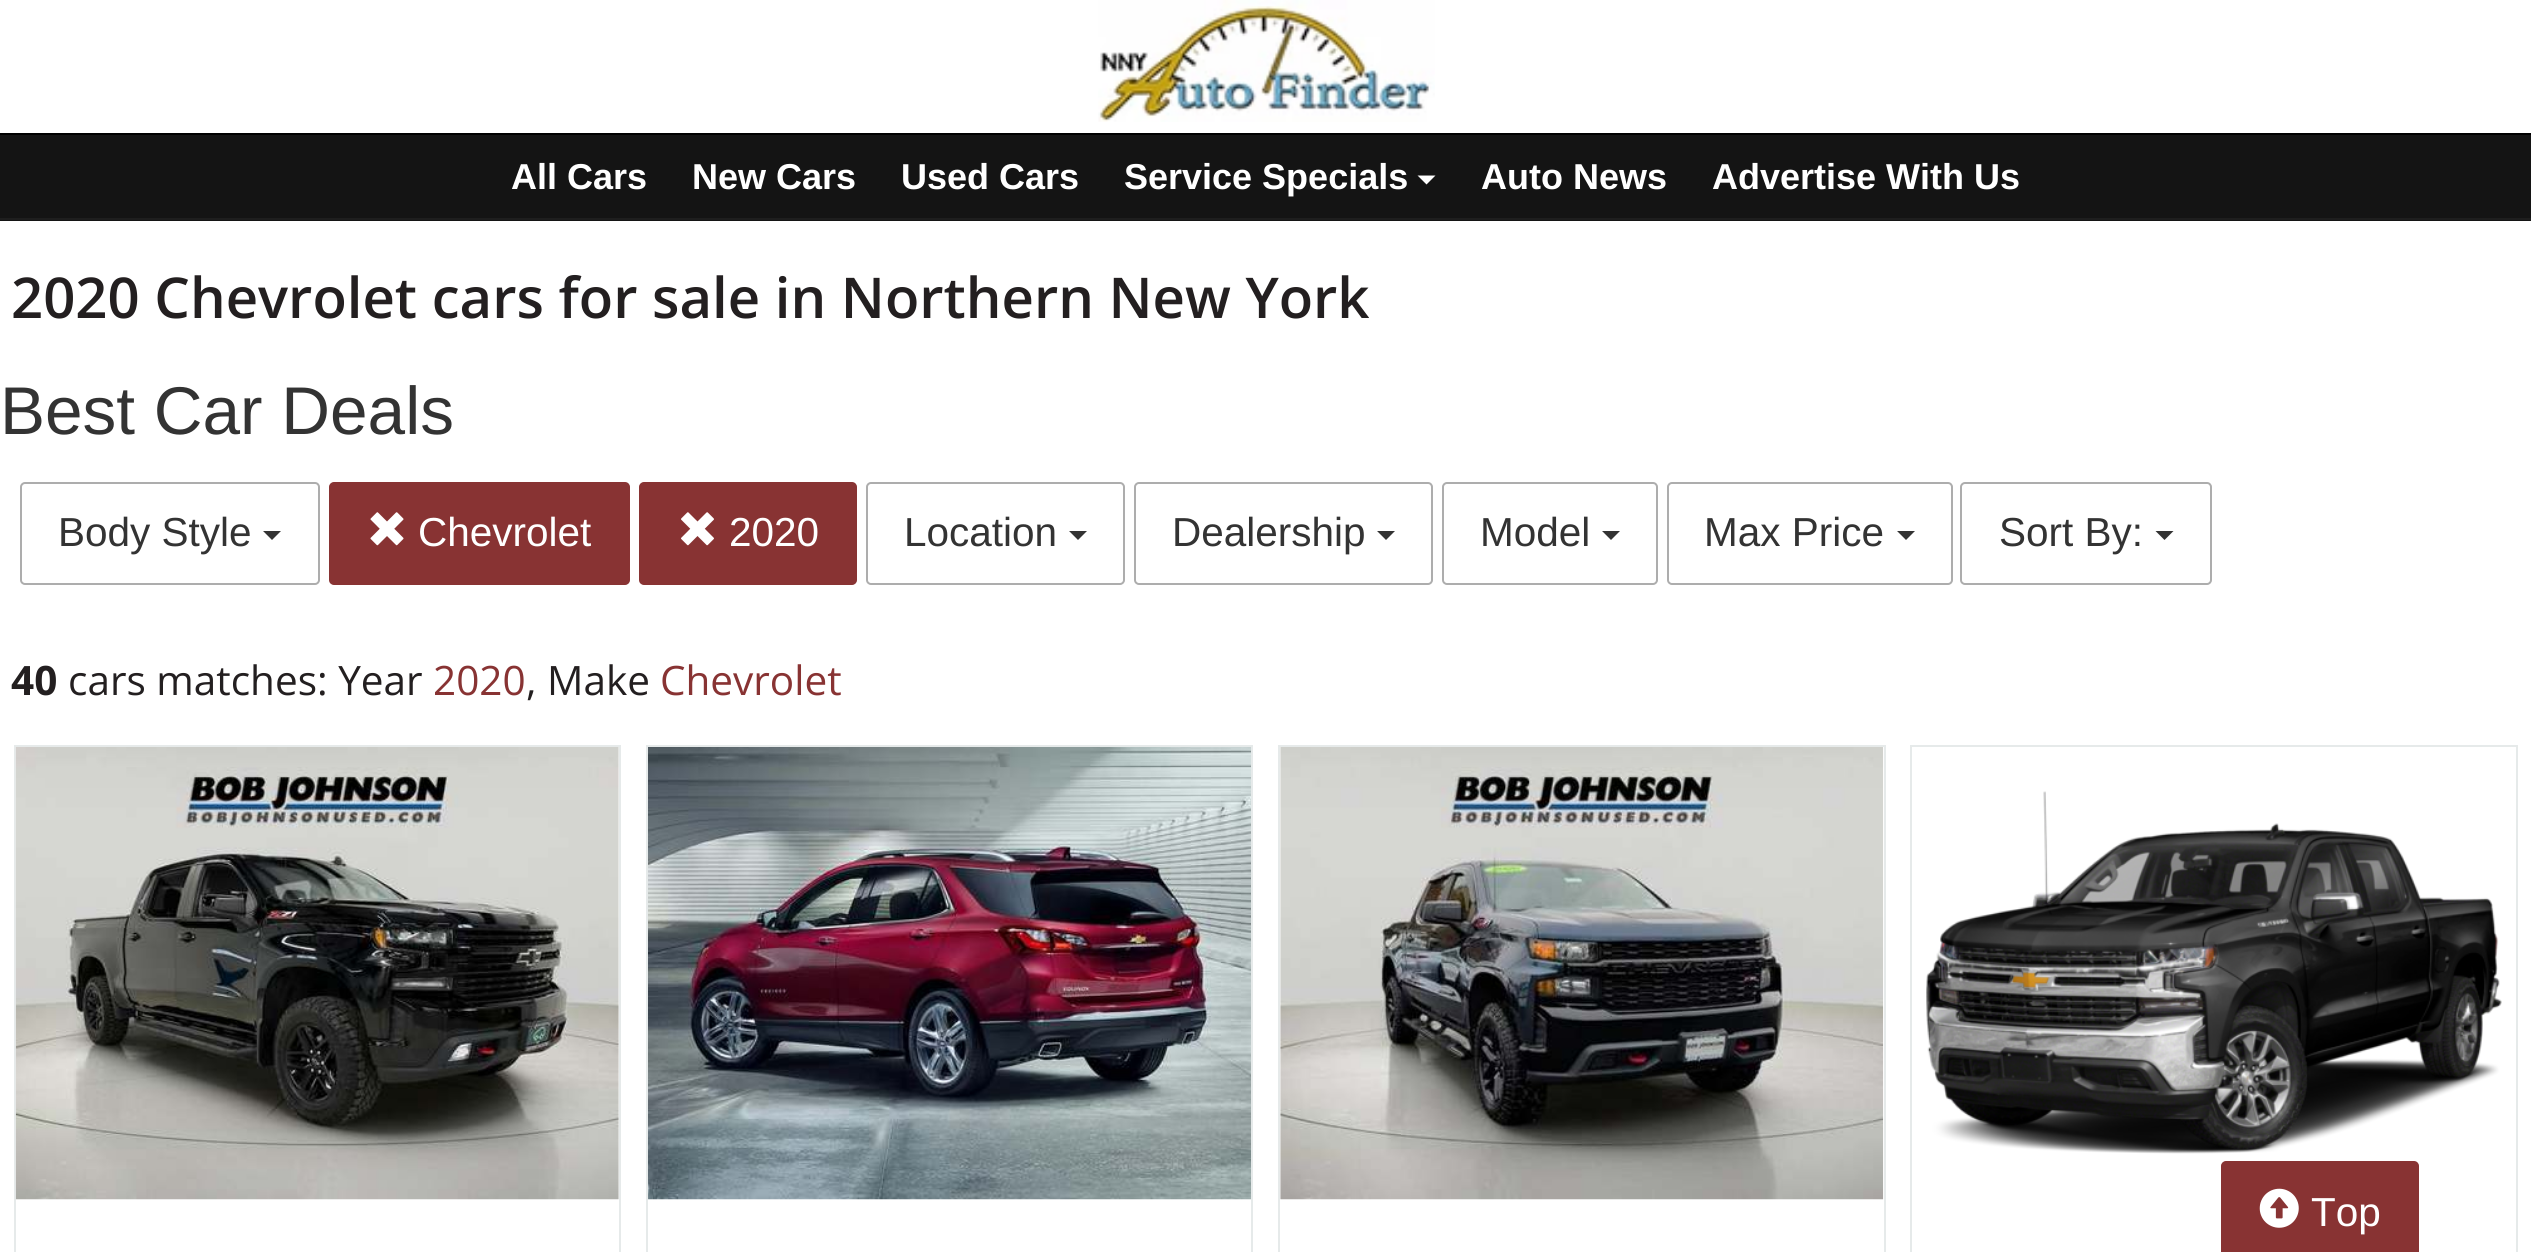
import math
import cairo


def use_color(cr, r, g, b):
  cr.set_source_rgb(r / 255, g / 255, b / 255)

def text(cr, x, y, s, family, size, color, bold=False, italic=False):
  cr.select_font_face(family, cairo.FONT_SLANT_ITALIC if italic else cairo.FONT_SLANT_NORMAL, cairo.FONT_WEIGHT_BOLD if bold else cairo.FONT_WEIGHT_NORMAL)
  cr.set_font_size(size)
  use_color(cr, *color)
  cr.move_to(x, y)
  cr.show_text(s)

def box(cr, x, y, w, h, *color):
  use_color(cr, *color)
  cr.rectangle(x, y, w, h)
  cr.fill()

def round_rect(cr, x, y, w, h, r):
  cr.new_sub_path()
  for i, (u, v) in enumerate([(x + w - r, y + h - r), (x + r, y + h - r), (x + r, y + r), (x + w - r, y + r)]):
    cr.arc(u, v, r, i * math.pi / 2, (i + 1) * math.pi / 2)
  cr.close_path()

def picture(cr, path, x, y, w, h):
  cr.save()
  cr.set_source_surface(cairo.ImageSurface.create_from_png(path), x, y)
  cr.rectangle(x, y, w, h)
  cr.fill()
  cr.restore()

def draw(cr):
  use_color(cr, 255, 255, 255)
  cr.paint()
  box(cr, 0, 133, 2531, 2, 0, 0, 0)
  picture(cr, "img_01.png", 1098, 0, 337, 122)
  box(cr, 0, 135, 2531, 86, 20, 20, 20)
  box(cr, 0, 218, 2531, 2, 30, 30, 30)
  use_color(cr, 255, 255, 255)
  cr.new_path()
  cr.move_to(1417.5, 175.5)
  cr.line_to(1435.5, 175.5)
  cr.line_to(1426.5, 184.5)
  cr.close_path()
  cr.fill()
  round_rect(cr, 21, 483, 298, 101, 4)
  use_color(cr, 173, 173, 173)
  cr.stroke()
  use_color(cr, 51, 51, 51)
  cr.new_path()
  cr.move_to(263, 531)
  cr.line_to(281, 531)
  cr.line_to(272, 540)
  cr.close_path()
  cr.fill()
  use_color(cr, 136, 51, 51)
  round_rect(cr, 330, 483, 299, 101, 4)
  cr.fill_preserve()
  cr.stroke()
  picture(cr, "img_02.png", 370, 512, 34, 34)
  round_rect(cr, 640, 483, 216, 101, 4)
  cr.fill_preserve()
  cr.stroke()
  picture(cr, "img_03.png", 681, 512, 33, 34)
  round_rect(cr, 867, 483, 257, 101, 4)
  use_color(cr, 173, 173, 173)
  cr.stroke()
  use_color(cr, 51, 51, 51)
  cr.new_path()
  cr.move_to(1069, 531)
  cr.line_to(1087, 531)
  cr.line_to(1078, 540)
  cr.close_path()
  cr.fill()
  round_rect(cr, 1135, 483, 297, 101, 4)
  use_color(cr, 173, 173, 173)
  cr.stroke()
  use_color(cr, 51, 51, 51)
  cr.new_path()
  cr.move_to(1377, 531)
  cr.line_to(1395, 531)
  cr.line_to(1386, 540)
  cr.close_path()
  cr.fill()
  round_rect(cr, 1443, 483, 214, 101, 4)
  use_color(cr, 173, 173, 173)
  cr.stroke()
  use_color(cr, 51, 51, 51)
  cr.new_path()
  cr.move_to(1602, 531)
  cr.line_to(1620, 531)
  cr.line_to(1611, 540)
  cr.close_path()
  cr.fill()
  round_rect(cr, 1668, 483, 284, 101, 4)
  use_color(cr, 173, 173, 173)
  cr.stroke()
  use_color(cr, 51, 51, 51)
  cr.new_path()
  cr.move_to(1897, 531)
  cr.line_to(1915, 531)
  cr.line_to(1906, 540)
  cr.close_path()
  cr.fill()
  round_rect(cr, 1961, 483, 250, 101, 4)
  use_color(cr, 173, 173, 173)
  cr.stroke()
  use_color(cr, 51, 51, 51)
  cr.new_path()
  cr.move_to(2155.5, 531)
  cr.line_to(2173.5, 531)
  cr.line_to(2164.5, 540)
  cr.close_path()
  cr.fill()
  cr.rectangle(15, 746, 605, 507)
  use_color(cr, 230, 234, 234)
  cr.stroke()
  picture(cr, "img_04.png", 15, 747, 604, 453)
  cr.rectangle(647, 746, 605, 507)
  cr.stroke()
  picture(cr, "img_05.png", 648, 747, 603, 453)
  cr.rectangle(1279, 746, 606, 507)
  cr.stroke()
  picture(cr, "img_06.png", 1280, 747, 604, 453)
  cr.rectangle(1911, 746, 606, 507)
  cr.stroke()
  picture(cr, "img_07.png", 1926, 791, 576, 363)
  use_color(cr, 136, 51, 51)
  round_rect(cr, 2222, 1162, 196, 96, 4)
  cr.fill_preserve()
  cr.stroke()
  picture(cr, "img_08.png", 2259, 1188, 40, 40)
  text(cr, 511, 189, "All Cars", "Liberation Sans", 36, (255, 255, 255), bold=True)
  text(cr, 692, 189, "New Cars", "Liberation Sans", 36, (255, 255, 255), bold=True)
  text(cr, 901, 189, "Used Cars", "Liberation Sans", 36, (255, 255, 255), bold=True)
  text(cr, 1124, 189, "Service Specials", "Liberation Sans", 36, (255, 255, 255), bold=True)
  text(cr, 1481, 189, "Auto News", "Liberation Sans", 36, (255, 255, 255), bold=True)
  text(cr, 1712, 189, "Advertise With Us", "Liberation Sans", 36, (255, 255, 255), bold=True)
  text(cr, 11, 318, "2020 Chevrolet cars for sale in Northern New York", "Open Sans SemiBold", 56.25, (35, 31, 32))
  text(cr, 0, 434, "Best Car Deals", "Liberation Sans", 67.5, (51, 51, 51))
  text(cr, 58, 546, "Body Style", "Liberation Sans", 40.5, (51, 51, 51))
  text(cr, 418, 546, "Chevrolet", "Liberation Sans", 40.5, (255, 255, 255))
  text(cr, 729, 546, "2020", "Liberation Sans", 40.5, (255, 255, 255))
  text(cr, 904, 546, "Location", "Liberation Sans", 40.5, (51, 51, 51))
  text(cr, 1172, 546, "Dealership", "Liberation Sans", 40.5, (51, 51, 51))
  text(cr, 1480, 546, "Model", "Liberation Sans", 40.5, (51, 51, 51))
  text(cr, 1704, 546, "Max Price", "Liberation Sans", 40.5, (51, 51, 51))
  text(cr, 1999, 546, "Sort By:", "Liberation Sans", 40.5, (51, 51, 51))
  text(cr, 11, 695, "40", "Open Sans", 40.5, (35, 31, 32), bold=True)
  text(cr, 68, 695, "cars matches: Year", "Open Sans", 40.5, (35, 31, 32))
  text(cr, 433, 695, "2020", "Open Sans", 40.5, (136, 51, 51))
  text(cr, 526, 695, ", Make", "Open Sans", 40.5, (35, 31, 32))
  text(cr, 660, 695, "Chevrolet", "Open Sans", 40.5, (136, 51, 51))
  text(cr, 2311, 1226, "Top", "Liberation Sans", 40.5, (255, 255, 255))


surface = cairo.ImageSurface(cairo.FORMAT_RGB24, 2531, 1252)
cr = cairo.Context(surface)
options = cairo.FontOptions()
options.set_hint_metrics(cairo.HINT_METRICS_OFF)
options.set_hint_style(cairo.HINT_STYLE_NONE)
cr.set_font_options(options)
cr.set_miter_limit(4)
draw(cr)
surface.write_to_png("out.png")
